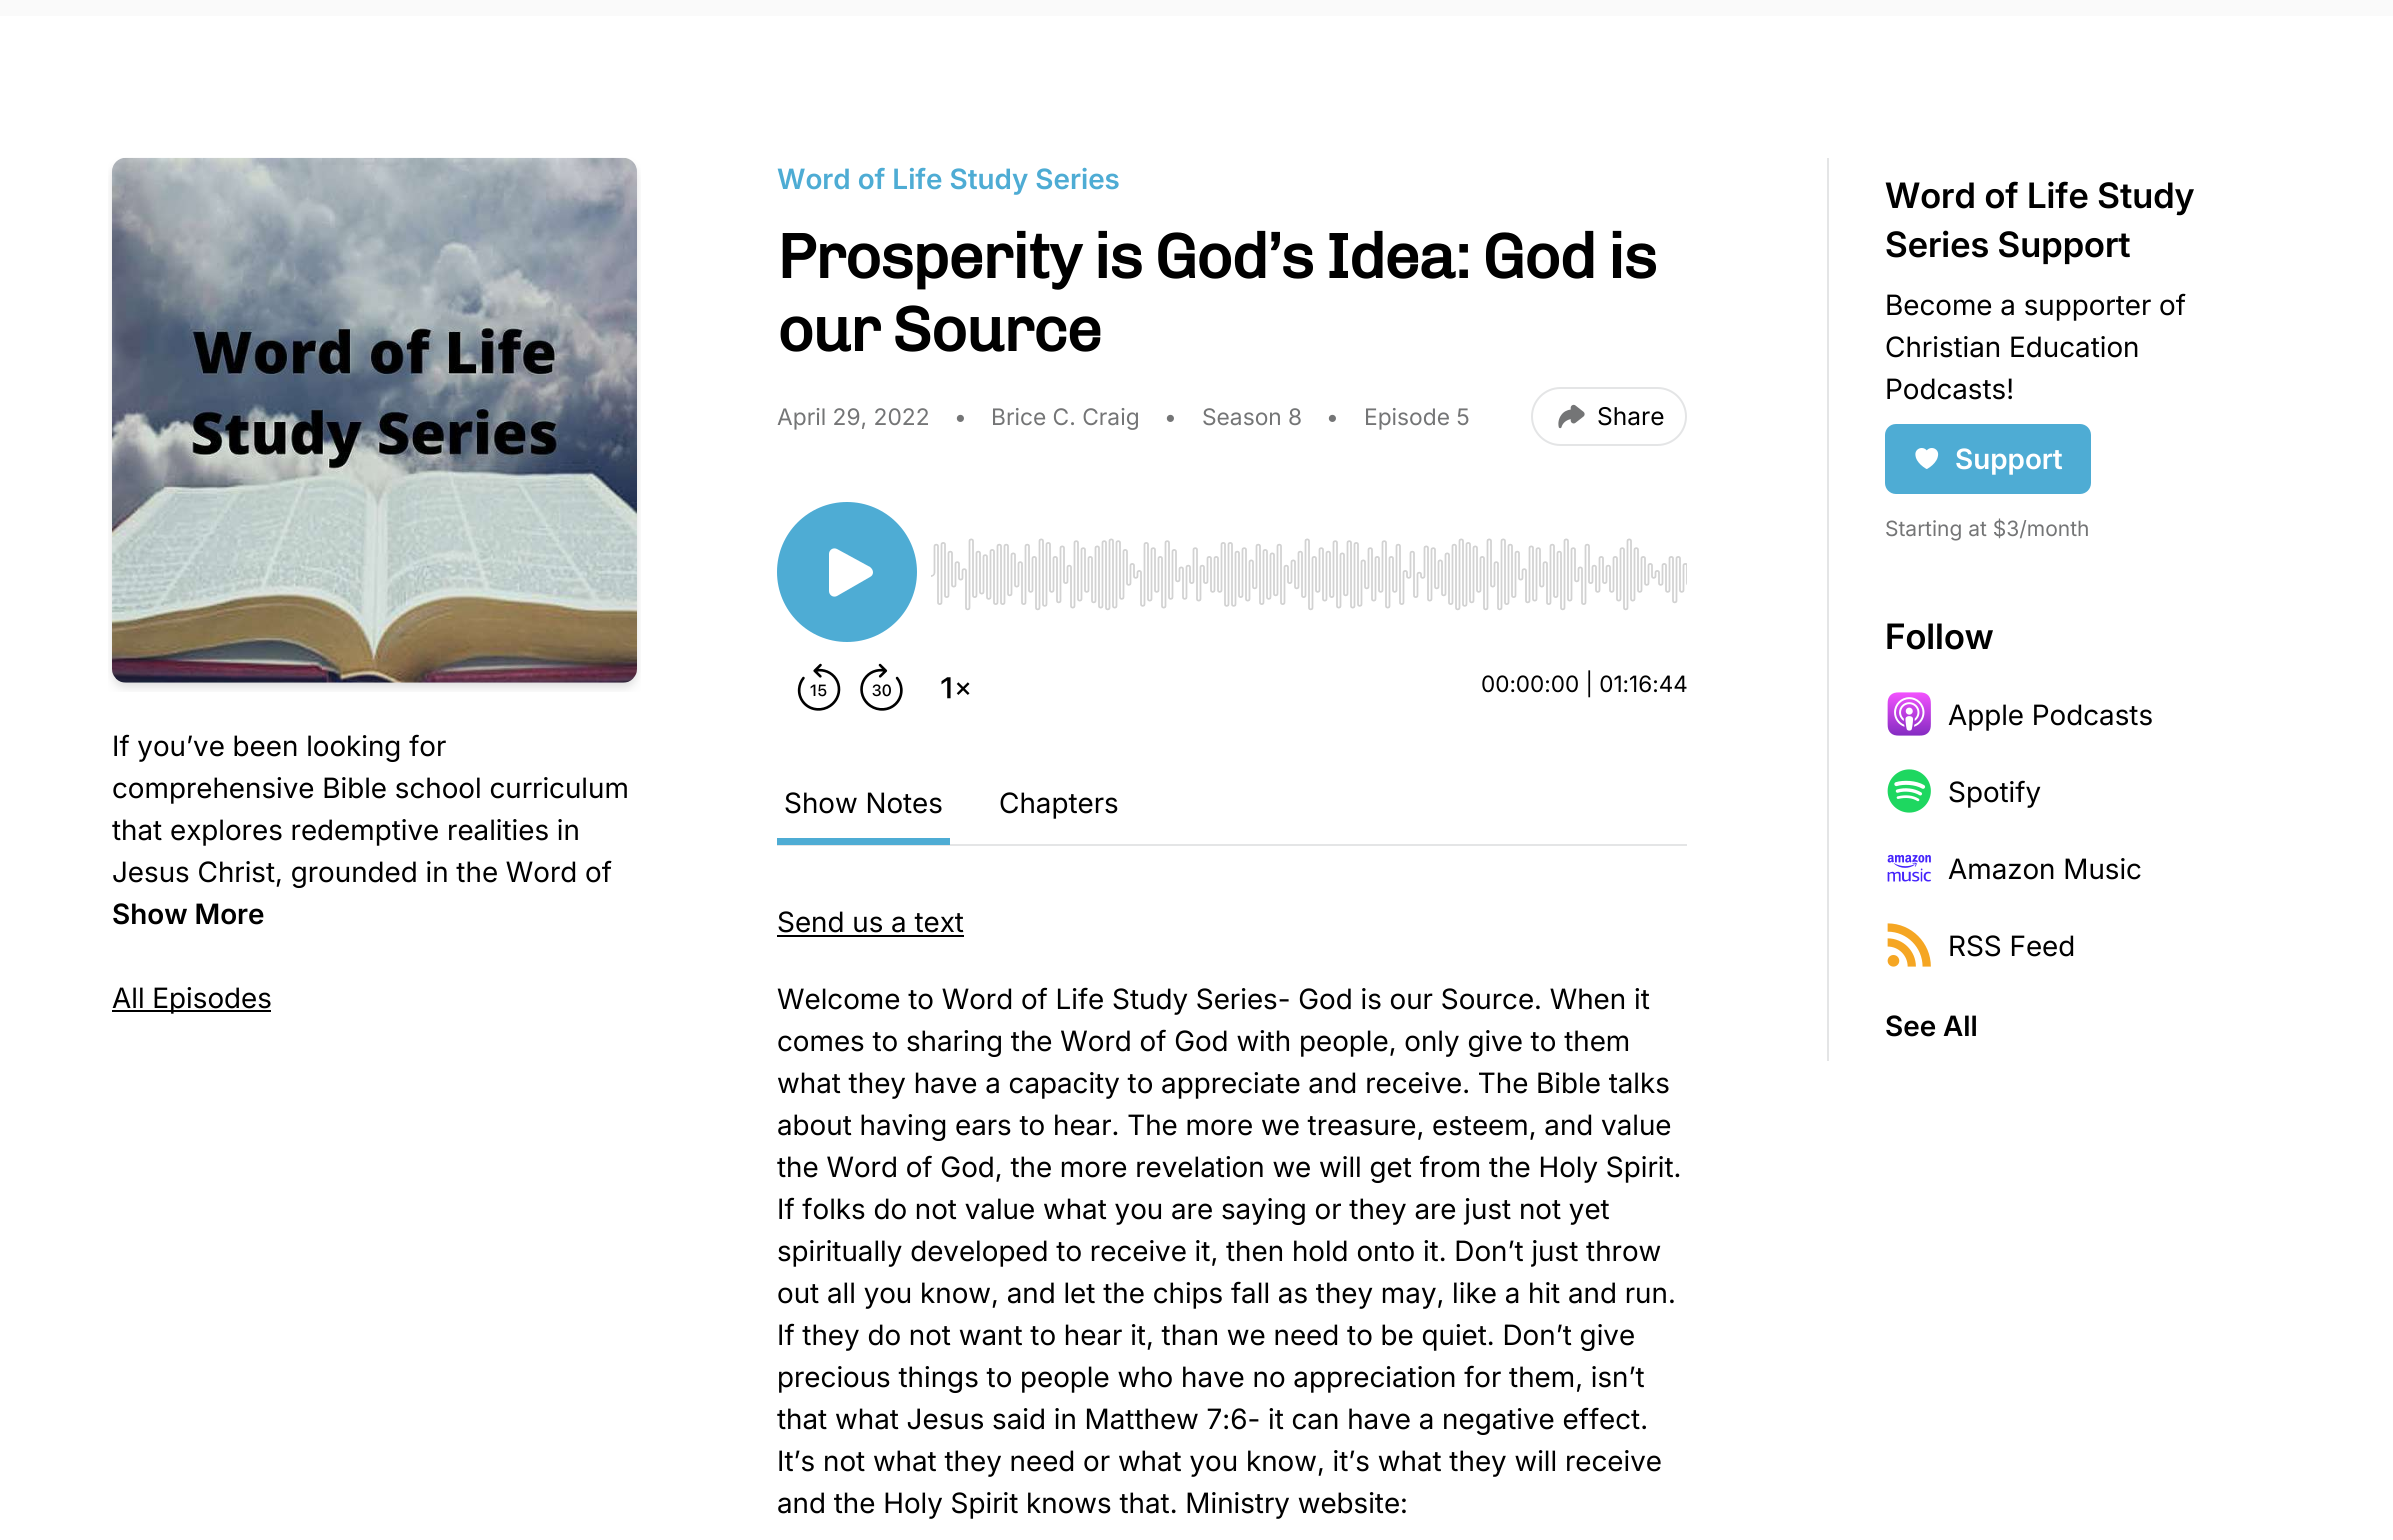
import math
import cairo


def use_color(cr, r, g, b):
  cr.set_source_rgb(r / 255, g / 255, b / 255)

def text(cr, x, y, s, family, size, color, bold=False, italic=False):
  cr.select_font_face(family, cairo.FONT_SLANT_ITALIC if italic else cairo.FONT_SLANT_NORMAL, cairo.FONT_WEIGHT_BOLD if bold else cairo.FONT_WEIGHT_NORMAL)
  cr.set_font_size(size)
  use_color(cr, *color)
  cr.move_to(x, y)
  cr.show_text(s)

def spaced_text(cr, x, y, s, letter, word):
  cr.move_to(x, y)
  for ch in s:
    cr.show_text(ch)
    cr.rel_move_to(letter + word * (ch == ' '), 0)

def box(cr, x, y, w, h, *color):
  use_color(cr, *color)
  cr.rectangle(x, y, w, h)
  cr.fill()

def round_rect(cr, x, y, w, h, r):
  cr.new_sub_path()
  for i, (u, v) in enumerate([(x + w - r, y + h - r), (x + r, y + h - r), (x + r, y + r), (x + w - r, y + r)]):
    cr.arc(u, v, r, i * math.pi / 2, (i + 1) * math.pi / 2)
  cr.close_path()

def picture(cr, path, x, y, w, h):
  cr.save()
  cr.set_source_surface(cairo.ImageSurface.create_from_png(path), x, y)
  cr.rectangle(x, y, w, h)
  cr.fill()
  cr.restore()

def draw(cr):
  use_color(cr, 255, 255, 255)
  cr.paint()
  box(cr, 0, 0, 2393, 16, 250, 250, 250)
  picture(cr, "img_01.png", 108, 157, 533, 535)
  box(cr, 112, 1010, 159, 2, 0, 0, 0)
  round_rect(cr, 1532, 388, 154, 57, 28.5)
  use_color(cr, 228, 229, 230)
  cr.stroke()
  picture(cr, "img_02.png", 1558, 404, 27, 25)
  picture(cr, "img_03.png", 797, 663, 44, 48)
  picture(cr, "img_04.png", 860, 663, 43, 48)
  picture(cr, "img_05.png", 941, 677, 29, 22)
  use_color(cr, 78, 172, 212)
  cr.arc(847, 572, 70, 0, 2 * math.pi)
  cr.fill()
  use_color(cr, 255, 255, 255)
  cr.set_fill_rule(cairo.FILL_RULE_EVEN_ODD)
  cr.new_path()
  cr.move_to(829, 554)
  cr.curve_to(829, 550, 833, 547, 837, 549)
  cr.line_to(870, 567)
  cr.curve_to(874, 570, 874, 575, 870, 577)
  cr.line_to(837, 596)
  cr.curve_to(833, 598, 829, 595, 829, 591)
  cr.close_path()
  cr.fill()
  picture(cr, "img_06.png", 931, 538, 756, 73)
  box(cr, 777, 844, 910, 2, 228, 229, 230)
  box(cr, 777, 838, 173, 7, 78, 172, 212)
  box(cr, 777, 935, 187, 2, 0, 0, 0)
  box(cr, 1827, 158, 2, 903, 228, 229, 230)
  use_color(cr, 78, 172, 212)
  round_rect(cr, 1885, 424, 206, 70, 11)
  cr.fill()
  picture(cr, "img_07.png", 1915, 448, 24, 21)
  picture(cr, "img_08.png", 1887, 692, 44, 44)
  picture(cr, "img_09.png", 1887, 769, 44, 44)
  picture(cr, "img_10.png", 1887, 854, 44, 28)
  picture(cr, "img_11.png", 1887, 923, 44, 44)
  text(cr, 112, 756, "If you’ve been looking for", "Inter", 28, (0, 0, 0))
  text(cr, 112, 798, "comprehensive Bible school curriculum", "Inter", 28, (0, 0, 0))
  text(cr, 112, 840, "that explores redemptive realities in", "Inter", 28, (0, 0, 0))
  text(cr, 112, 882, "Jesus Christ, grounded in the Word of", "Inter", 28, (0, 0, 0))
  text(cr, 112, 924, "Show More", "Inter SemiBold", 28, (0, 0, 0))
  text(cr, 112, 1008, "All Episodes", "Inter", 28, (0, 0, 0))
  text(cr, 777, 189, "Word of Life Study Series", "Inter SemiBold", 28, (78, 172, 212))
  cr.select_font_face("Chivo", cairo.FONT_SLANT_NORMAL, cairo.FONT_WEIGHT_BOLD)
  cr.set_font_size(63)
  use_color(cr, 0, 0, 0)
  spaced_text(cr, 777, 278, "Prosperity is God’s Idea: God is", -1.6, 0)
  spaced_text(cr, 777, 351, "our Source", -1.6, 0)
  text(cr, 777, 425, "April 29, 2022", "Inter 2", 22.75, (116, 117, 118))
  text(cr, 954, 425, "•", "Inter 2", 22.75, (116, 117, 118))
  text(cr, 991, 425, "Brice C. Craig", "Inter 2", 22.75, (116, 117, 118))
  text(cr, 1164, 425, "•", "Inter 2", 22.75, (116, 117, 118))
  text(cr, 1202, 425, "Season 8", "Inter 2", 22.75, (116, 117, 118))
  text(cr, 1326, 425, "•", "Inter 2", 22.75, (116, 117, 118))
  text(cr, 1364, 425, "Episode 5", "Inter 2", 22.75, (116, 117, 118))
  text(cr, 1597, 425, "Share", "Inter 2", 24.5, (0, 0, 0))
  text(cr, 1481, 692, "00:00:00 | 01:16:44", "Inter 2", 22.5, (0, 0, 0))
  text(cr, 784, 813, "Show Notes", "Inter", 28, (0, 0, 0))
  text(cr, 999, 813, "Chapters", "Inter", 28, (0, 0, 0))
  text(cr, 777, 932, "Send us a text", "Inter", 28, (0, 0, 0))
  text(cr, 777, 1009, "Welcome to Word of Life Study Series- God is our Source. When it", "Inter", 28, (0, 0, 0))
  text(cr, 777, 1051, "comes to sharing the Word of God with people, only give to them", "Inter", 28, (0, 0, 0))
  text(cr, 777, 1093, "what they have a capacity to appreciate and receive. The Bible talks", "Inter", 28, (0, 0, 0))
  text(cr, 777, 1135, "about having ears to hear. The more we treasure, esteem, and value", "Inter", 28, (0, 0, 0))
  text(cr, 777, 1177, "the Word of God, the more revelation we will get from the Holy Spirit.", "Inter", 28, (0, 0, 0))
  text(cr, 777, 1219, "If folks do not value what you are saying or they are just not yet", "Inter", 28, (0, 0, 0))
  text(cr, 777, 1261, "spiritually developed to receive it, then hold onto it. Don’t just throw", "Inter", 28, (0, 0, 0))
  text(cr, 777, 1303, "out all you know, and let the chips fall as they may, like a hit and run.", "Inter", 28, (0, 0, 0))
  text(cr, 777, 1345, "If they do not want to hear it, than we need to be quiet. Don’t give", "Inter", 28, (0, 0, 0))
  text(cr, 777, 1387, "precious things to people who have no appreciation for them, isn’t", "Inter", 28, (0, 0, 0))
  text(cr, 777, 1429, "that what Jesus said in Matthew 7:6- it can have a negative effect.", "Inter", 28, (0, 0, 0))
  text(cr, 777, 1471, "It’s not what they need or what you know, it’s what they will receive", "Inter", 28, (0, 0, 0))
  text(cr, 777, 1513, "and the Holy Spirit knows that. Ministry website:", "Inter", 28, (0, 0, 0))
  text(cr, 1885, 208, "Word of Life Study", "Inter 2 SemiBold", 35, (0, 0, 0))
  text(cr, 1885, 257, "Series Support", "Inter 2 SemiBold", 35, (0, 0, 0))
  text(cr, 1885, 315, "Become a supporter of", "Inter", 28, (0, 0, 0))
  text(cr, 1885, 357, "Christian Education", "Inter", 28, (0, 0, 0))
  text(cr, 1885, 399, "Podcasts!", "Inter", 28, (0, 0, 0))
  text(cr, 1955, 469, "Support", "Inter SemiBold", 28, (255, 255, 255))
  text(cr, 1885, 536, "Starting at $3/month", "Inter 2", 21, (116, 117, 118))
  text(cr, 1885, 649, "Follow", "Inter 2 SemiBold", 35, (0, 0, 0))
  text(cr, 1948, 725, "Apple Podcasts", "Inter", 28, (0, 0, 0))
  text(cr, 1948, 802, "Spotify", "Inter", 28, (0, 0, 0))
  text(cr, 1948, 879, "Amazon Music", "Inter", 28, (0, 0, 0))
  text(cr, 1948, 956, "RSS Feed", "Inter", 28, (0, 0, 0))
  text(cr, 1885, 1036, "See All", "Inter SemiBold", 28, (0, 0, 0))


surface = cairo.ImageSurface(cairo.FORMAT_RGB24, 2393, 1540)
cr = cairo.Context(surface)
options = cairo.FontOptions()
options.set_hint_metrics(cairo.HINT_METRICS_OFF)
options.set_hint_style(cairo.HINT_STYLE_NONE)
cr.set_font_options(options)
cr.set_miter_limit(4)
draw(cr)
surface.write_to_png("out.png")
